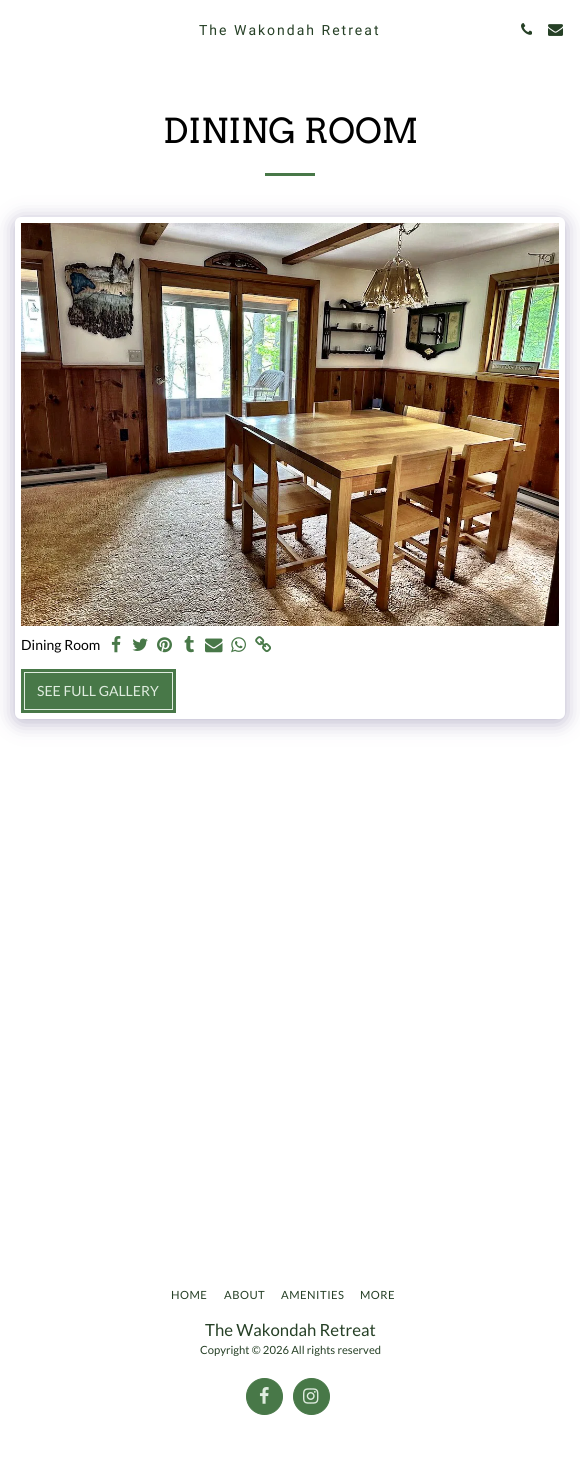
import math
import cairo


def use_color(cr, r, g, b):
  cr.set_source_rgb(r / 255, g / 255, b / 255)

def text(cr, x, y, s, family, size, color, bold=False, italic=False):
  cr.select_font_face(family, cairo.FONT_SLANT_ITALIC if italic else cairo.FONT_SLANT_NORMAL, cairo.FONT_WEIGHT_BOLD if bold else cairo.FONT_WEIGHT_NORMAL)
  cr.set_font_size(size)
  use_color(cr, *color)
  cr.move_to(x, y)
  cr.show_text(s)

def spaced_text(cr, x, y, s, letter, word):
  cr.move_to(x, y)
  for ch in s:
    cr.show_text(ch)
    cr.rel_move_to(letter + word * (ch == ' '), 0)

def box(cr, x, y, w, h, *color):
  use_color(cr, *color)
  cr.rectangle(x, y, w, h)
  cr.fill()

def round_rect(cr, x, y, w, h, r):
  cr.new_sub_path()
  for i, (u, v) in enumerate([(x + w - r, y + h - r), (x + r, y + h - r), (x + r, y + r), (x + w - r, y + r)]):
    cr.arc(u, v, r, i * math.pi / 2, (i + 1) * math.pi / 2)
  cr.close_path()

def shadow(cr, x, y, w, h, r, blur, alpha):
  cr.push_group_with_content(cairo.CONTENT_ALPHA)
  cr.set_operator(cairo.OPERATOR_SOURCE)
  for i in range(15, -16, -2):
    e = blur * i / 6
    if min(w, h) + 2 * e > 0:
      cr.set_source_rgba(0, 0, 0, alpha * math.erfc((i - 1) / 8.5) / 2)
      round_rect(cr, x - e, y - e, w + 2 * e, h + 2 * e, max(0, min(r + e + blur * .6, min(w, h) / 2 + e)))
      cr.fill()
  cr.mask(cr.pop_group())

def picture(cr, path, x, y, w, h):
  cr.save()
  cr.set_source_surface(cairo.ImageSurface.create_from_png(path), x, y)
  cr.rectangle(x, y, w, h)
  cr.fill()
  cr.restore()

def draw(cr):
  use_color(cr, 255, 255, 255)
  cr.paint()
  picture(cr, "img_01.png", 521, 23, 11, 12)
  picture(cr, "img_02.png", 548, 24, 15, 12)
  box(cr, 265, 173, 50, 3, 72, 120, 72)
  use_color(cr, 77, 63, 122)
  shadow(cr, 15, 220, 550, 502, 6, 10, 0.4)
  use_color(cr, 255, 255, 255)
  round_rect(cr, 15, 217, 550, 502, 6)
  cr.fill()
  picture(cr, "img_03.png", 21, 223, 538, 403)
  picture(cr, "img_04.png", 111, 636, 10, 17)
  picture(cr, "img_05.png", 132, 638, 16, 13)
  picture(cr, "img_06.png", 157, 637, 15, 16)
  picture(cr, "img_07.png", 184, 636, 10, 17)
  picture(cr, "img_08.png", 205, 638, 18, 15)
  picture(cr, "img_09.png", 231, 637, 15, 16)
  picture(cr, "img_10.png", 255, 636, 16, 17)
  box(cr, 21, 669, 155, 44, 72, 120, 72)
  cr.rectangle(24.5, 672.5, 148, 37)
  use_color(cr, 223, 236, 223)
  cr.set_line_width(1)
  cr.stroke()
  use_color(cr, 72, 120, 72)
  cr.arc(264.5, 1396.5, 18, 0, 2 * math.pi)
  cr.fill_preserve()
  cr.stroke()
  picture(cr, "img_11.png", 259, 1387, 10, 17)
  cr.arc(311.5, 1396.5, 18, 0, 2 * math.pi)
  cr.fill_preserve()
  cr.stroke()
  picture(cr, "img_12.png", 303, 1388, 16, 16)
  cr.select_font_face("Roboto")
  cr.set_font_size(14)
  use_color(cr, 38, 64, 38)
  spaced_text(cr, 199, 35, "The Wakondah Retreat", 2, 0)
  text(cr, 163, 143, "DINING ROOM", "Arvo", 34.25, (0, 0, 0))
  text(cr, 21, 650, "Dining Room", "Lato", 14, (0, 0, 0))
  text(cr, 37, 696, "SEE FULL GALLERY", "Lato", 14, (223, 236, 223))
  cr.set_font_size(11.25)
  use_color(cr, 38, 64, 38)
  spaced_text(cr, 171, 1299, "HOME", 0.5, 0)
  spaced_text(cr, 224, 1299, "ABOUT", 0.5, 0)
  spaced_text(cr, 281, 1299, "AMENITIES", 0.5, 0)
  spaced_text(cr, 360, 1299, "MORE", 0.5, 0)
  text(cr, 205, 1336, "The Wakondah Retreat", "Lato", 16.75, (38, 64, 38))
  text(cr, 200, 1354, "Copyright © 2026 All rights reserved", "Lato", 11.25, (38, 64, 38))


surface = cairo.ImageSurface(cairo.FORMAT_RGB24, 580, 1473)
cr = cairo.Context(surface)
options = cairo.FontOptions()
options.set_hint_metrics(cairo.HINT_METRICS_OFF)
options.set_hint_style(cairo.HINT_STYLE_NONE)
cr.set_font_options(options)
cr.set_miter_limit(4)
draw(cr)
surface.write_to_png("out.png")
